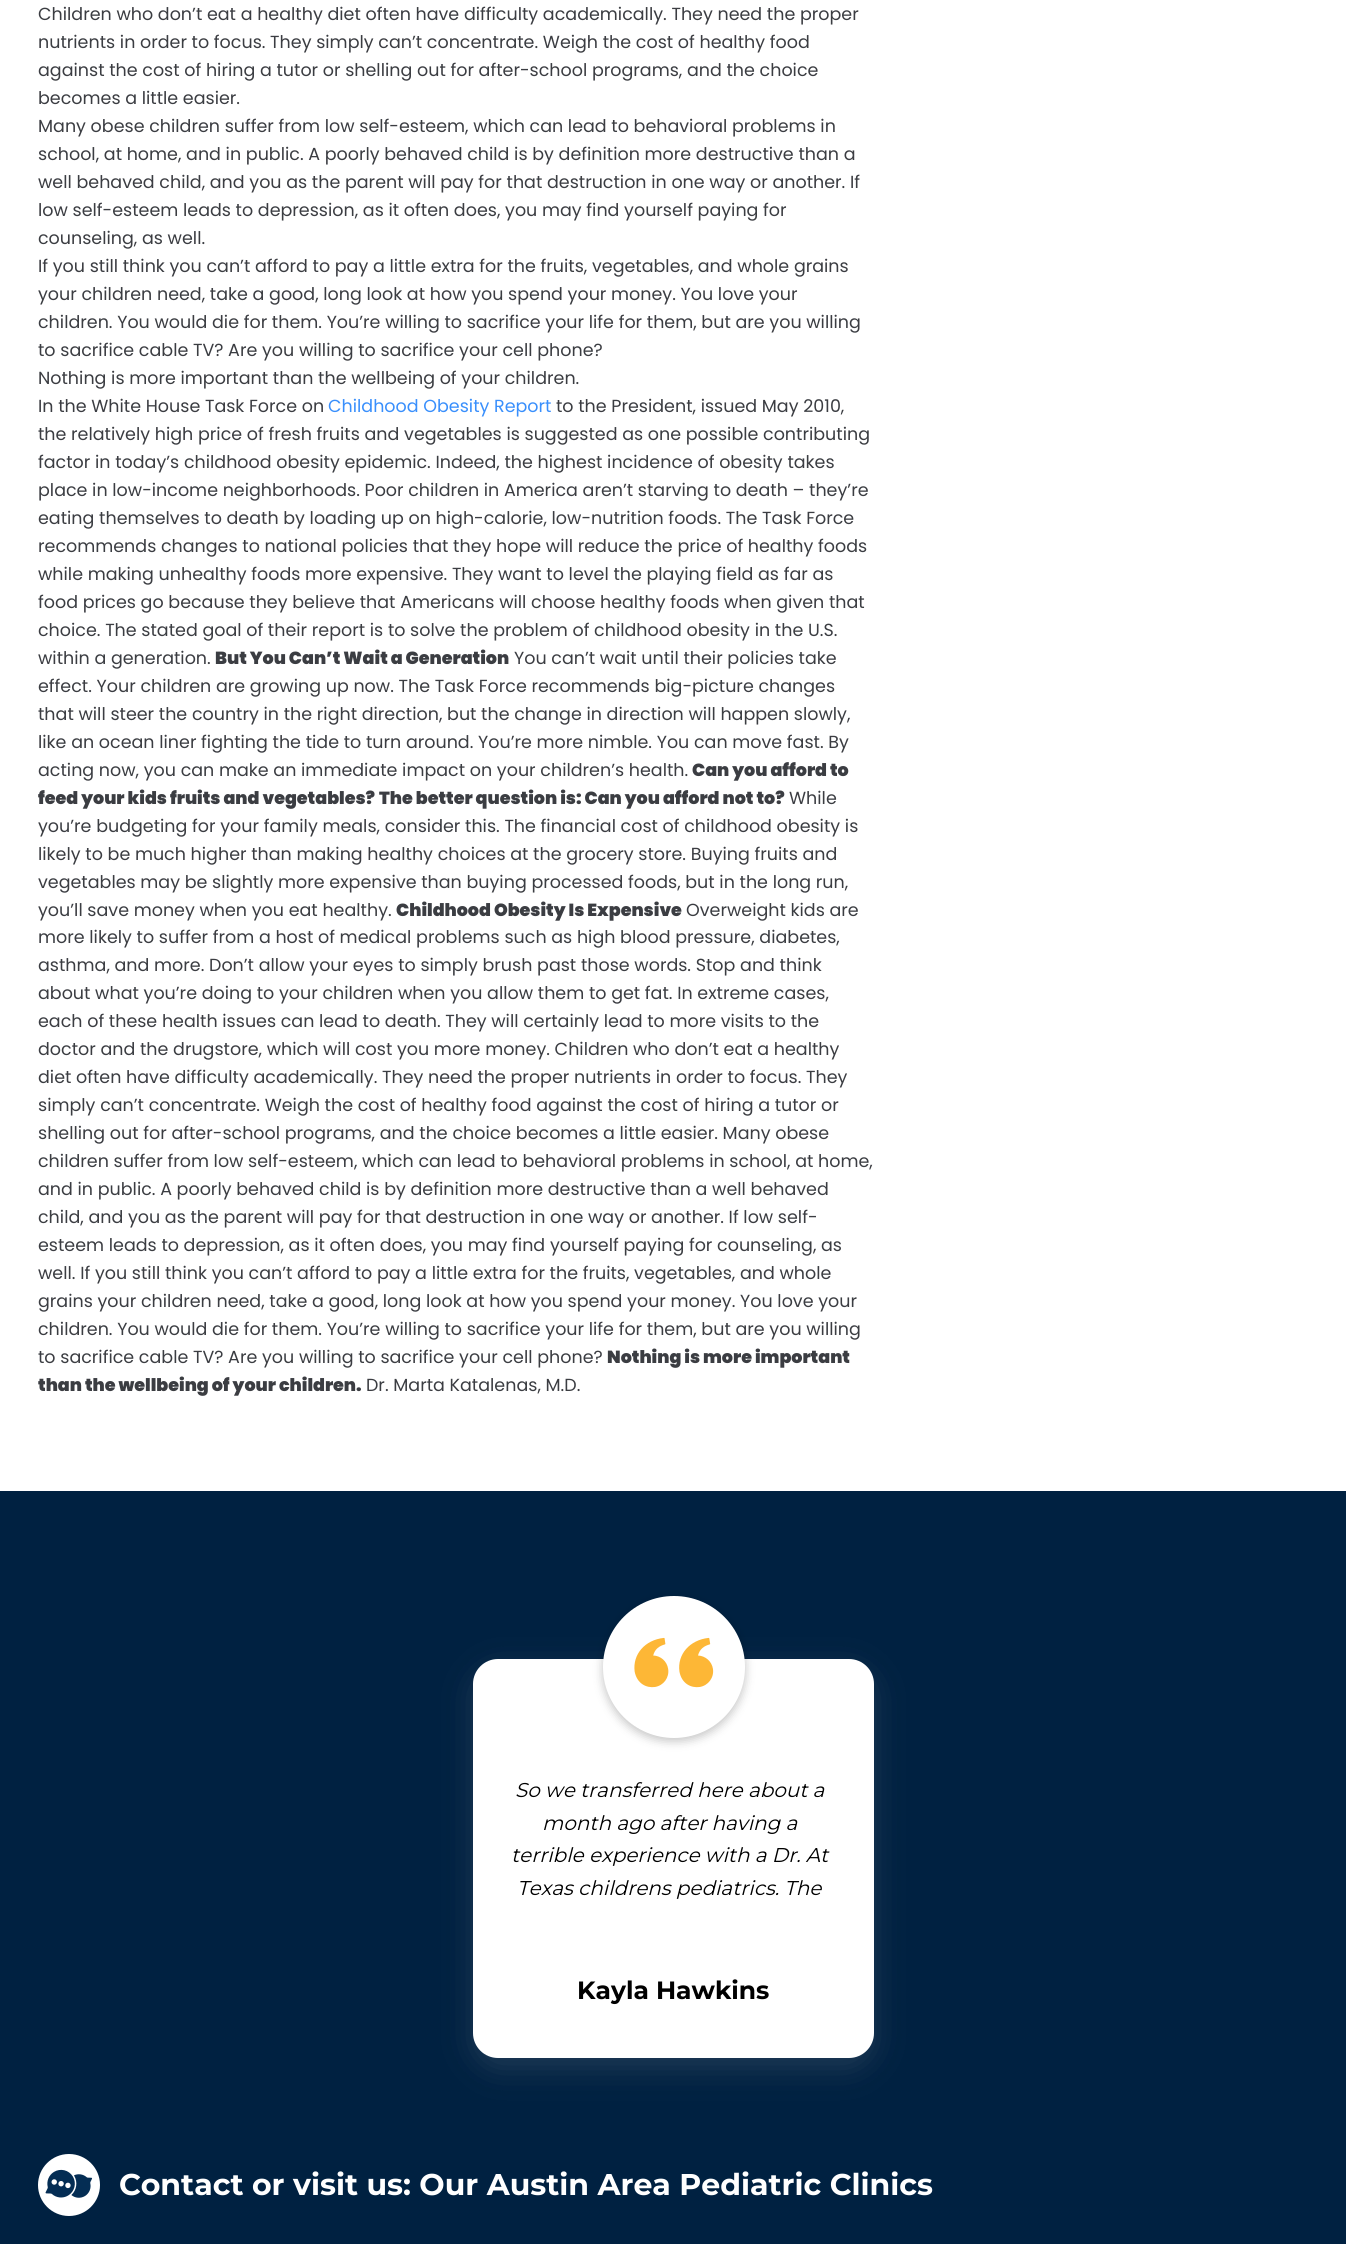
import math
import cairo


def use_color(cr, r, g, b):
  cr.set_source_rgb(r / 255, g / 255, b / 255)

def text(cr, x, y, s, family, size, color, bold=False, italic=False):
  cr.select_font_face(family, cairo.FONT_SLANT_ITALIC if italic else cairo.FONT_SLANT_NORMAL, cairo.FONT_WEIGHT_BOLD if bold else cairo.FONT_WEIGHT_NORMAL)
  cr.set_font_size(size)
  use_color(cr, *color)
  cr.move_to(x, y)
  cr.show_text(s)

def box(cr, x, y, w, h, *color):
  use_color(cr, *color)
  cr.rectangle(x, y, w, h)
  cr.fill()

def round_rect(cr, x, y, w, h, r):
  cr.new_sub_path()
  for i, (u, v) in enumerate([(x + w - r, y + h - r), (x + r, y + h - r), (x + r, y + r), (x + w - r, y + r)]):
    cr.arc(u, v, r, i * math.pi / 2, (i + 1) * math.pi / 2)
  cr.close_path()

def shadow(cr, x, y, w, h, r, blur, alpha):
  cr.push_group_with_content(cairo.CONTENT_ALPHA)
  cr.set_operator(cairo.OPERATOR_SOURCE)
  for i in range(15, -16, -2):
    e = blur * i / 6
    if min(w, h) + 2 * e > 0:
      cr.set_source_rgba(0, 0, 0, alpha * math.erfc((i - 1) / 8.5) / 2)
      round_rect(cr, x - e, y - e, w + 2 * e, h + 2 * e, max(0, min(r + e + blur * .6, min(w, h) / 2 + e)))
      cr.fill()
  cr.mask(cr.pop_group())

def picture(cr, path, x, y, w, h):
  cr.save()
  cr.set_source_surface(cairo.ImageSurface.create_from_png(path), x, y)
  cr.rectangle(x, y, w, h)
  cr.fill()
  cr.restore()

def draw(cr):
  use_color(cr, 255, 255, 255)
  cr.paint()
  box(cr, 0, 1491, 1346, 753, 0, 33, 65)
  use_color(cr, 149, 157, 165)
  shadow(cr, 473, 1669, 401, 399, 25, 15, 0.2)
  use_color(cr, 255, 255, 255)
  round_rect(cr, 473, 1659, 401, 399, 25)
  cr.fill()
  use_color(cr, 0, 0, 0)
  shadow(cr, 603, 1600, 142, 141, 70.5, 5, 0.24)
  use_color(cr, 255, 255, 255)
  cr.arc(674, 1667, 71, 0, 2 * math.pi)
  cr.fill()
  picture(cr, "img_01.png", 634, 1637, 80, 51)
  picture(cr, "img_02.png", 38, 2154, 62, 62)
  text(cr, 38, 20, "Children who don’t eat a healthy diet often have difficulty academically. They need the proper", "Poppins", 17.5, (59, 61, 66))
  text(cr, 38, 48, "nutrients in order to focus. They simply can’t concentrate. Weigh the cost of healthy food", "Poppins", 17.5, (59, 61, 66))
  text(cr, 38, 76, "against the cost of hiring a tutor or shelling out for after-school programs, and the choice", "Poppins", 17.5, (59, 61, 66))
  text(cr, 38, 104, "becomes a little easier.", "Poppins", 17.5, (59, 61, 66))
  text(cr, 38, 132, "Many obese children suffer from low self-esteem, which can lead to behavioral problems in", "Poppins", 17.5, (59, 61, 66))
  text(cr, 38, 160, "school, at home, and in public. A poorly behaved child is by definition more destructive than a", "Poppins", 17.5, (59, 61, 66))
  text(cr, 38, 188, "well behaved child, and you as the parent will pay for that destruction in one way or another. If", "Poppins", 17.5, (59, 61, 66))
  text(cr, 38, 216, "low self-esteem leads to depression, as it often does, you may find yourself paying for", "Poppins", 17.5, (59, 61, 66))
  text(cr, 38, 244, "counseling, as well.", "Poppins", 17.5, (59, 61, 66))
  text(cr, 38, 272, "If you still think you can’t afford to pay a little extra for the fruits, vegetables, and whole grains", "Poppins", 17.5, (59, 61, 66))
  text(cr, 38, 300, "your children need, take a good, long look at how you spend your money. You love your", "Poppins", 17.5, (59, 61, 66))
  text(cr, 38, 328, "children. You would die for them. You’re willing to sacrifice your life for them, but are you willing", "Poppins", 17.5, (59, 61, 66))
  text(cr, 38, 356, "to sacrifice cable TV? Are you willing to sacrifice your cell phone?", "Poppins", 17.5, (59, 61, 66))
  text(cr, 38, 384, "Nothing is more important than the wellbeing of your children.", "Poppins", 17.5, (59, 61, 66))
  text(cr, 38, 412, "In the White House Task Force on", "Poppins", 17.5, (59, 61, 66))
  text(cr, 328, 412, "Childhood Obesity Report", "Poppins", 17.5, (57, 143, 252))
  text(cr, 556, 412, "to the President, issued May 2010,", "Poppins", 17.5, (59, 61, 66))
  text(cr, 38, 440, "the relatively high price of fresh fruits and vegetables is suggested as one possible contributing", "Poppins", 17.5, (59, 61, 66))
  text(cr, 38, 468, "factor in today’s childhood obesity epidemic. Indeed, the highest incidence of obesity takes", "Poppins", 17.5, (59, 61, 66))
  text(cr, 38, 496, "place in low-income neighborhoods. Poor children in America aren’t starving to death – they’re", "Poppins", 17.5, (59, 61, 66))
  text(cr, 38, 524, "eating themselves to death by loading up on high-calorie, low-nutrition foods. The Task Force", "Poppins", 17.5, (59, 61, 66))
  text(cr, 38, 552, "recommends changes to national policies that they hope will reduce the price of healthy foods", "Poppins", 17.5, (59, 61, 66))
  text(cr, 38, 580, "while making unhealthy foods more expensive. They want to level the playing field as far as", "Poppins", 17.5, (59, 61, 66))
  text(cr, 38, 608, "food prices go because they believe that Americans will choose healthy foods when given that", "Poppins", 17.5, (59, 61, 66))
  text(cr, 38, 636, "choice. The stated goal of their report is to solve the problem of childhood obesity in the U.S.", "Poppins", 17.5, (59, 61, 66))
  text(cr, 38, 664, "within a generation.", "Poppins", 17.5, (59, 61, 66))
  text(cr, 215, 664, "But You Can’t Wait a Generation", "Poppins Black", 17.5, (59, 61, 66))
  text(cr, 514, 664, "You can’t wait until their policies take", "Poppins", 17.5, (59, 61, 66))
  text(cr, 38, 692, "effect. Your children are growing up now. The Task Force recommends big-picture changes", "Poppins", 17.5, (59, 61, 66))
  text(cr, 38, 720, "that will steer the country in the right direction, but the change in direction will happen slowly,", "Poppins", 17.5, (59, 61, 66))
  text(cr, 38, 748, "like an ocean liner fighting the tide to turn around. You’re more nimble. You can move fast. By", "Poppins", 17.5, (59, 61, 66))
  text(cr, 38, 776, "acting now, you can make an immediate impact on your children’s health.", "Poppins", 17.5, (59, 61, 66))
  text(cr, 692, 776, "Can you afford to", "Poppins Black", 17.5, (59, 61, 66))
  text(cr, 38, 804, "feed your kids fruits and vegetables?", "Poppins Black", 17.5, (59, 61, 66))
  text(cr, 379, 804, "The better question is: Can you afford not to?", "Poppins Black", 17.5, (59, 61, 66))
  text(cr, 789, 804, "While", "Poppins", 17.5, (59, 61, 66))
  text(cr, 38, 832, "you’re budgeting for your family meals, consider this. The financial cost of childhood obesity is", "Poppins", 17.5, (59, 61, 66))
  text(cr, 38, 860, "likely to be much higher than making healthy choices at the grocery store. Buying fruits and", "Poppins", 17.5, (59, 61, 66))
  text(cr, 38, 888, "vegetables may be slightly more expensive than buying processed foods, but in the long run,", "Poppins", 17.5, (59, 61, 66))
  text(cr, 38, 916, "you’ll save money when you eat healthy.", "Poppins", 17.5, (59, 61, 66))
  text(cr, 396, 916, "Childhood Obesity Is Expensive", "Poppins Black", 17.5, (59, 61, 66))
  text(cr, 686, 916, "Overweight kids are", "Poppins", 17.5, (59, 61, 66))
  text(cr, 38, 943, "more likely to suffer from a host of medical problems such as high blood pressure, diabetes,", "Poppins", 17.5, (59, 61, 66))
  text(cr, 38, 971, "asthma, and more. Don’t allow your eyes to simply brush past those words. Stop and think", "Poppins", 17.5, (59, 61, 66))
  text(cr, 38, 999, "about what you’re doing to your children when you allow them to get fat. In extreme cases,", "Poppins", 17.5, (59, 61, 66))
  text(cr, 38, 1027, "each of these health issues can lead to death. They will certainly lead to more visits to the", "Poppins", 17.5, (59, 61, 66))
  text(cr, 38, 1055, "doctor and the drugstore, which will cost you more money. Children who don’t eat a healthy", "Poppins", 17.5, (59, 61, 66))
  text(cr, 38, 1083, "diet often have difficulty academically. They need the proper nutrients in order to focus. They", "Poppins", 17.5, (59, 61, 66))
  text(cr, 38, 1111, "simply can’t concentrate. Weigh the cost of healthy food against the cost of hiring a tutor or", "Poppins", 17.5, (59, 61, 66))
  text(cr, 38, 1139, "shelling out for after-school programs, and the choice becomes a little easier. Many obese", "Poppins", 17.5, (59, 61, 66))
  text(cr, 38, 1167, "children suffer from low self-esteem, which can lead to behavioral problems in school, at home,", "Poppins", 17.5, (59, 61, 66))
  text(cr, 38, 1195, "and in public. A poorly behaved child is by definition more destructive than a well behaved", "Poppins", 17.5, (59, 61, 66))
  text(cr, 38, 1223, "child, and you as the parent will pay for that destruction in one way or another. If low self-", "Poppins", 17.5, (59, 61, 66))
  text(cr, 38, 1251, "esteem leads to depression, as it often does, you may find yourself paying for counseling, as", "Poppins", 17.5, (59, 61, 66))
  text(cr, 38, 1279, "well. If you still think you can’t afford to pay a little extra for the fruits, vegetables, and whole", "Poppins", 17.5, (59, 61, 66))
  text(cr, 38, 1307, "grains your children need, take a good, long look at how you spend your money. You love your", "Poppins", 17.5, (59, 61, 66))
  text(cr, 38, 1335, "children. You would die for them. You’re willing to sacrifice your life for them, but are you willing", "Poppins", 17.5, (59, 61, 66))
  text(cr, 38, 1363, "to sacrifice cable TV? Are you willing to sacrifice your cell phone?", "Poppins", 17.5, (59, 61, 66))
  text(cr, 607, 1363, "Nothing is more important", "Poppins Black", 17.5, (59, 61, 66))
  text(cr, 38, 1391, "than the wellbeing of your children.", "Poppins Black", 17.5, (59, 61, 66))
  text(cr, 366, 1391, "Dr. Marta Katalenas, M.D.", "Poppins", 17.5, (59, 61, 66))
  text(cr, 515, 1797, "So we transferred here about a", "Montserrat", 20, (0, 0, 0), italic=True)
  text(cr, 542, 1830, "month ago after having a", "Montserrat", 20, (0, 0, 0), italic=True)
  text(cr, 511, 1862, "terrible experience with a Dr. At", "Montserrat", 20, (0, 0, 0), italic=True)
  text(cr, 517, 1895, "Texas childrens pediatrics. The", "Montserrat", 20, (0, 0, 0), italic=True)
  text(cr, 577, 1999, "Kayla Hawkins", "Montserrat", 25, (0, 0, 0), bold=True)
  text(cr, 119, 2195, "Contact or visit us: Our Austin Area Pediatric Clinics", "Montserrat", 30, (255, 255, 255), bold=True)


surface = cairo.ImageSurface(cairo.FORMAT_RGB24, 1346, 2244)
cr = cairo.Context(surface)
options = cairo.FontOptions()
options.set_hint_metrics(cairo.HINT_METRICS_OFF)
options.set_hint_style(cairo.HINT_STYLE_NONE)
cr.set_font_options(options)
cr.set_miter_limit(4)
draw(cr)
surface.write_to_png("out.png")
